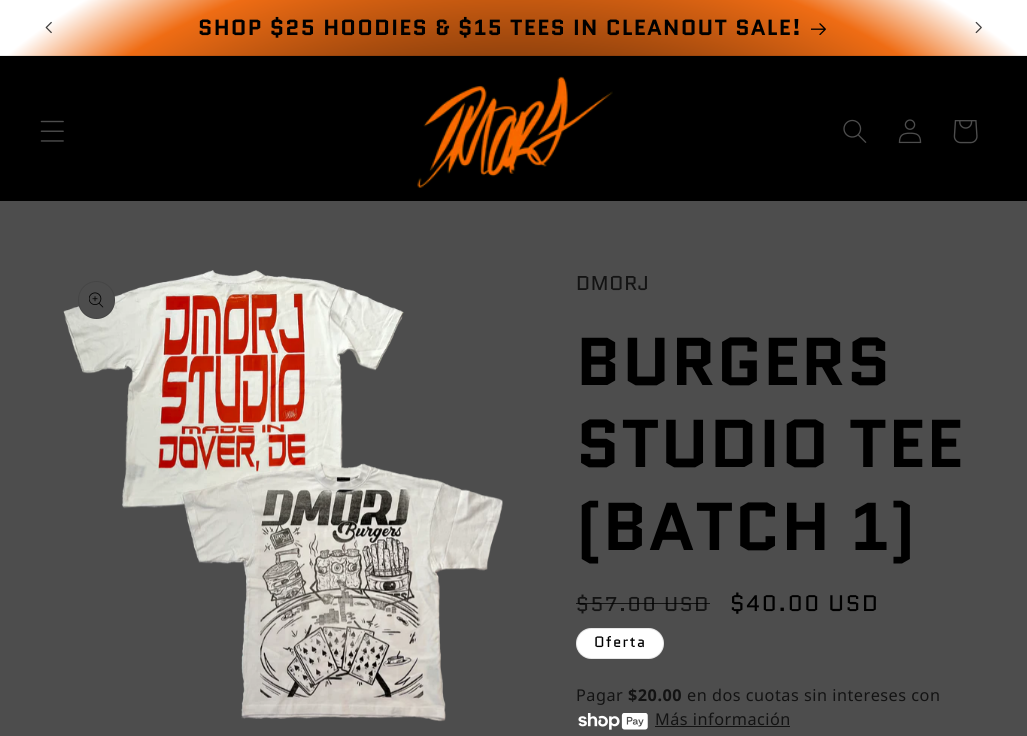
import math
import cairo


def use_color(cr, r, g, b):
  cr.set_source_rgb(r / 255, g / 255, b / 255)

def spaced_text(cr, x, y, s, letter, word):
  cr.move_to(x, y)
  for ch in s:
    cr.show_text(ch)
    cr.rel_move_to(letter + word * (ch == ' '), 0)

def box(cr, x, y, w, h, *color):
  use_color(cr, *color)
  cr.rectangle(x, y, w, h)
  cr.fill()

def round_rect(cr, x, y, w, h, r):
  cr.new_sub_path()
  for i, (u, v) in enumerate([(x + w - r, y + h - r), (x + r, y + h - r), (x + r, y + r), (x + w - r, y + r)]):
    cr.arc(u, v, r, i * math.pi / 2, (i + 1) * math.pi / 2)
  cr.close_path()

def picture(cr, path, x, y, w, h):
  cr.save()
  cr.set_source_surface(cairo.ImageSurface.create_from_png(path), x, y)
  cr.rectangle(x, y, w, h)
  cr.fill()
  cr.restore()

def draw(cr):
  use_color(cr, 77, 77, 77)
  cr.paint()
  gradient = cairo.RadialGradient(0, 0, 0, 0, 0, 1)
  gradient.set_matrix(cairo.Matrix(1 / 727, 0, 0, 1 / 521, -1 * 514 / 727, -1 * 368 / 521))
  gradient.add_color_stop_rgba(0.27, 0, 0, 0, 1)
  gradient.add_color_stop_rgba(0.8, 0.937, 0.424, 0.078, 1)
  gradient.add_color_stop_rgba(0.92, 1, 1, 1, 1)
  cr.set_source(gradient)
  cr.rectangle(0, 0, 1027, 55)
  cr.fill()
  gradient = cairo.RadialGradient(0, 0, 0, 0, 0, 1)
  gradient.set_matrix(cairo.Matrix(1 / 727, 0, 0, 1 / 521, -1 * 514 / 727, -1 * 368 / 521))
  gradient.add_color_stop_rgba(0.27, 0, 0, 0, 1)
  gradient.add_color_stop_rgba(0.8, 0.863, 0.388, 0.071, 1)
  gradient.add_color_stop_rgba(0.92, 0.922, 0.922, 0.922, 1)
  cr.set_source(gradient)
  cr.rectangle(0, 55, 1027, 1)
  cr.fill()
  picture(cr, "img_01.png", 45, 21, 7, 13)
  picture(cr, "img_02.png", 811, 23, 15, 12)
  picture(cr, "img_03.png", 975, 21, 7, 13)
  box(cr, 0, 56, 1027, 145, 0, 0, 0)
  picture(cr, "img_04.png", 40, 120, 24, 22)
  picture(cr, "img_05.png", 417, 76, 196, 112)
  picture(cr, "img_06.png", 843, 119, 24, 24)
  picture(cr, "img_07.png", 898, 119, 24, 25)
  picture(cr, "img_08.png", 953, 120, 25, 24)
  picture(cr, "img_09.png", 63, 270, 440, 452)
  use_color(cr, 77, 77, 77)
  round_rect(cr, 78, 281, 37, 38, 18.5)
  cr.fill()
  round_rect(cr, 78.5, 281.5, 36, 37, 18)
  cr.set_source_rgba(0, 0, 0, 0.1)
  cr.set_line_width(1)
  cr.stroke()
  picture(cr, "img_10.png", 89, 292, 15, 16)
  use_color(cr, 255, 255, 255)
  round_rect(cr, 576, 628, 88, 31, 15.5)
  cr.fill()
  round_rect(cr, 576.5, 628.5, 87, 30, 15)
  cr.set_source_rgba(0, 0, 0, 0.1)
  cr.stroke()
  picture(cr, "img_11.png", 578, 713, 70, 17)
  box(cr, 655, 726, 135, 1, 19, 19, 19)
  cr.select_font_face("Quantico", cairo.FONT_SLANT_NORMAL, cairo.FONT_WEIGHT_BOLD)
  cr.set_font_size(21.95)
  use_color(cr, 0, 0, 0)
  spaced_text(cr, 198, 35, "SHOP $25 HOODIES & $15 TEES IN CLEANOUT SALE!", 1.25, 0)
  cr.select_font_face("Quantico")
  cr.set_font_size(20)
  use_color(cr, 19, 19, 19)
  spaced_text(cr, 576, 290, "DMORJ", 0.75, 0)
  cr.select_font_face("Quantico", cairo.FONT_SLANT_NORMAL, cairo.FONT_WEIGHT_BOLD)
  cr.set_font_size(67.5)
  use_color(cr, 0, 0, 0)
  spaced_text(cr, 576, 385, "BURGERS", 1, 0)
  spaced_text(cr, 576, 467, "STUDIO TEE", 1, 0)
  spaced_text(cr, 576, 550, "(BATCH 1)", 1, 0)
  cr.select_font_face("Quantico")
  cr.set_font_size(20)
  use_color(cr, 19, 19, 19)
  spaced_text(cr, 576, 611, "$57.00 USD", 1.6, 0)
  cr.set_source_rgba(0, 0, 0, 0.75)
  cr.rectangle(576, 603, 134, 1)
  cr.fill()
  cr.set_font_size(22.5)
  use_color(cr, 0, 0, 0)
  spaced_text(cr, 730, 611, "$40.00 USD", 1.6, 0)
  cr.set_font_size(15)
  spaced_text(cr, 594, 647, "Oferta", 1.25, 0)
  cr.select_font_face("Noto Sans")
  cr.set_font_size(16.25)
  use_color(cr, 19, 19, 19)
  spaced_text(cr, 576, 701, "Pagar", 0.5, 0)
  cr.select_font_face("Noto Sans", cairo.FONT_SLANT_NORMAL, cairo.FONT_WEIGHT_BOLD)
  spaced_text(cr, 628, 701, "$20.00", 0.5, 0)
  cr.select_font_face("Noto Sans")
  spaced_text(cr, 687, 701, "en dos cuotas sin intereses con", 0.5, 0)
  spaced_text(cr, 655, 725, "Más información", 0.5, 0)


surface = cairo.ImageSurface(cairo.FORMAT_RGB24, 1027, 736)
cr = cairo.Context(surface)
options = cairo.FontOptions()
options.set_hint_metrics(cairo.HINT_METRICS_OFF)
options.set_hint_style(cairo.HINT_STYLE_NONE)
cr.set_font_options(options)
cr.set_miter_limit(4)
draw(cr)
surface.write_to_png("out.png")
